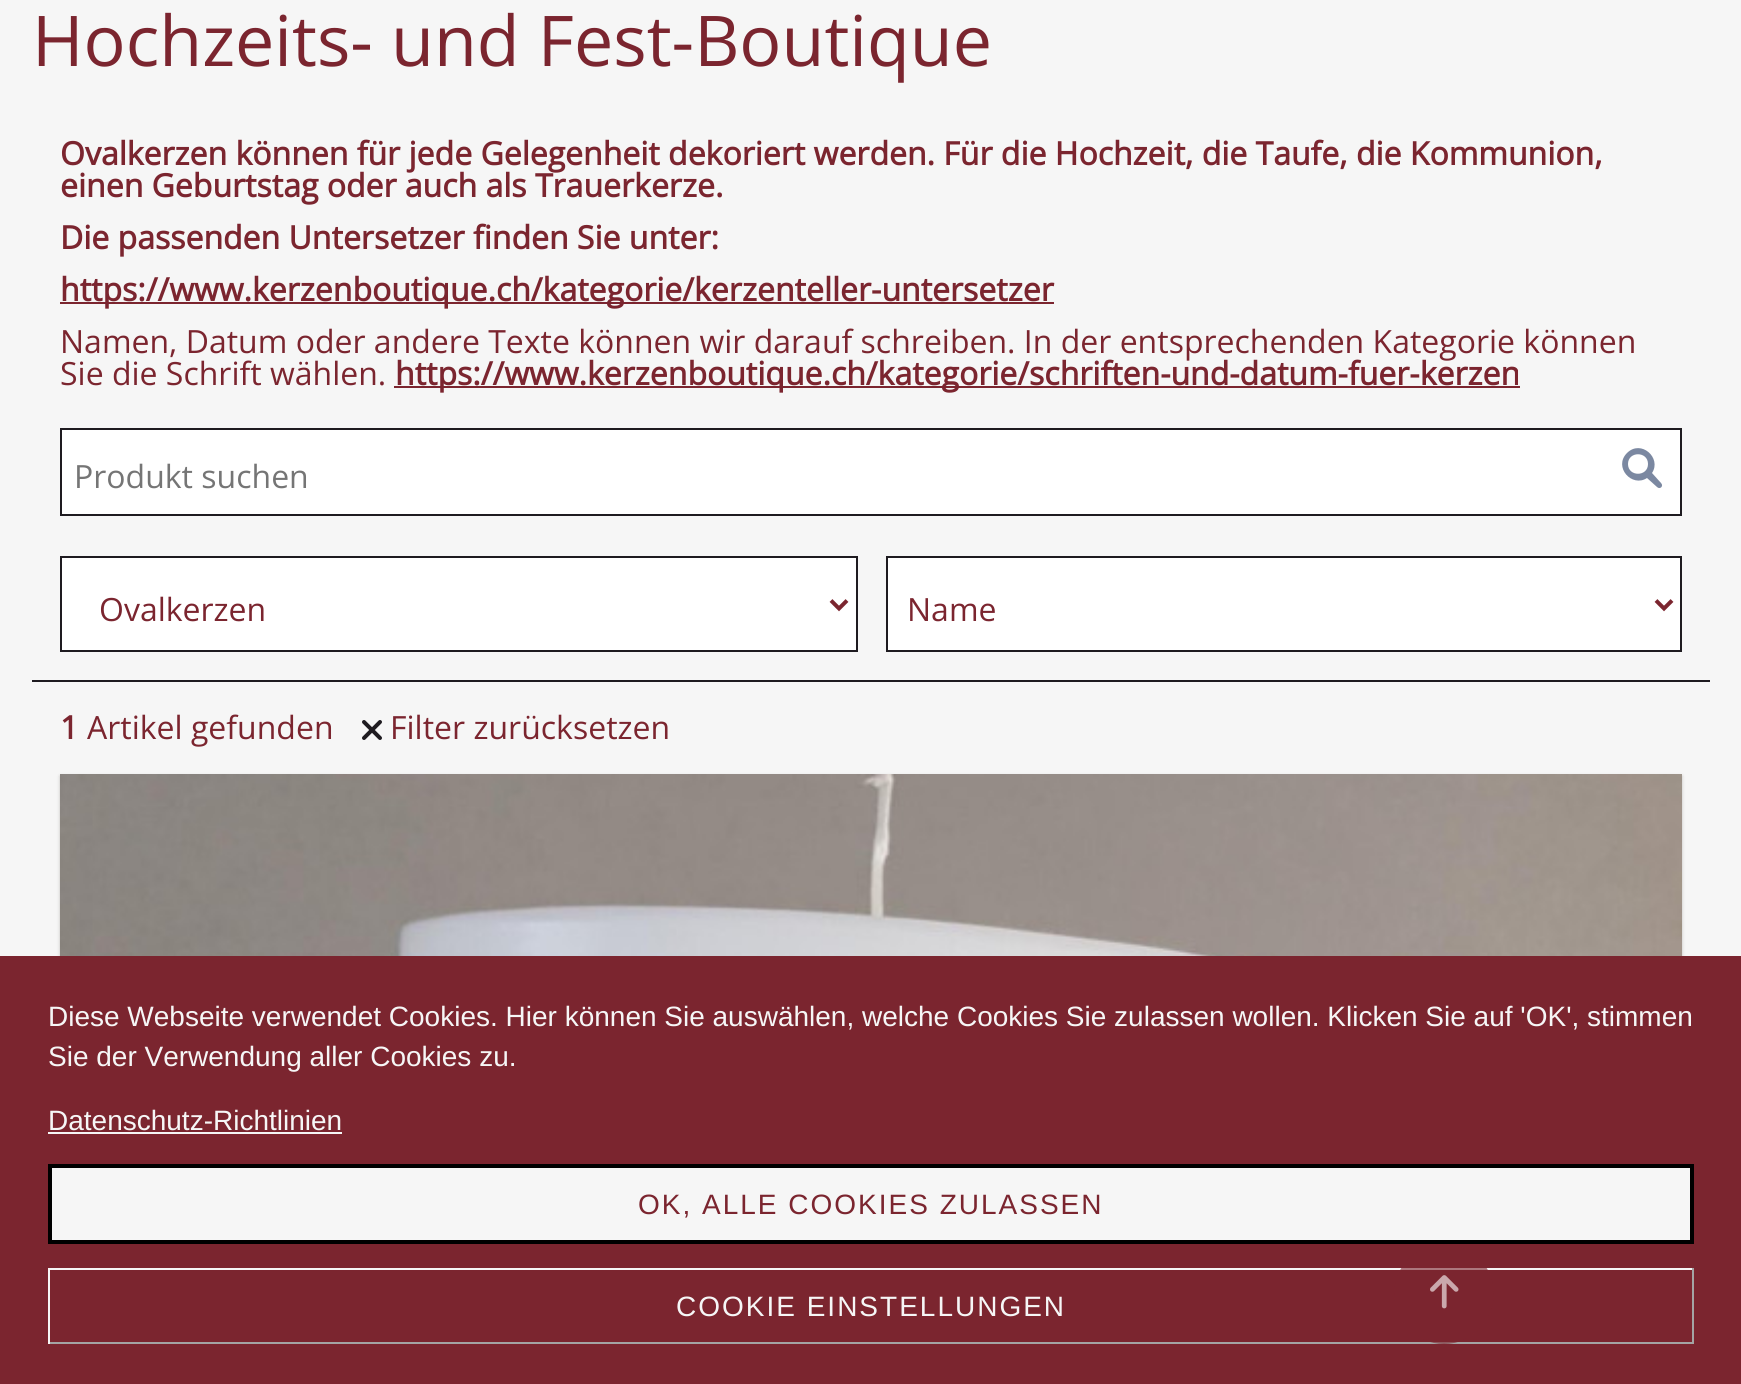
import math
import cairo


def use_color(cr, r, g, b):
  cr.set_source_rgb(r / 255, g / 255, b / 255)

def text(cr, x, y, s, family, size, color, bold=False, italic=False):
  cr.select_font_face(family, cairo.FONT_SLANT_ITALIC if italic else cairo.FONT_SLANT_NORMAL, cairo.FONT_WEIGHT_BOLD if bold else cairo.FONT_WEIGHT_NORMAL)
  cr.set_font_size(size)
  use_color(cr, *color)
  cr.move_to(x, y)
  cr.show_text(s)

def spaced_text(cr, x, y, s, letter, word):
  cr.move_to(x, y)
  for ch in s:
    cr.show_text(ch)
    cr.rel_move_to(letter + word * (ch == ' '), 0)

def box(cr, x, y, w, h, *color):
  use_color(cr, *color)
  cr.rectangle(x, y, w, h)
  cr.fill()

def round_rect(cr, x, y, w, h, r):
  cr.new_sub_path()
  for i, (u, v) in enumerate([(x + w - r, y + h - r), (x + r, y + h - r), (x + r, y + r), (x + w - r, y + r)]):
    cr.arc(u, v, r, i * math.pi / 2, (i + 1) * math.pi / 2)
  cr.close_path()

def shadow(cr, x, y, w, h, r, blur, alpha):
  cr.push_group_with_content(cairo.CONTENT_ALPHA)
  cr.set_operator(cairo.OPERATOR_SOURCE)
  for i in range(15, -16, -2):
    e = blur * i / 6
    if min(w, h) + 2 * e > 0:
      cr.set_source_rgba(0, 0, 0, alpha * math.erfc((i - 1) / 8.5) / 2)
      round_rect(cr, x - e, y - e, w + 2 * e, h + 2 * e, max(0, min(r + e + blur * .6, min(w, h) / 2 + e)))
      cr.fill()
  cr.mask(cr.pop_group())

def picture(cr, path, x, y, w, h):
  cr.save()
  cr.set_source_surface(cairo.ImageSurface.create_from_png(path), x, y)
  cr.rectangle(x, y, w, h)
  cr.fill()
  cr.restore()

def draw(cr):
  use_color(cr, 246, 246, 246)
  cr.paint()
  box(cr, 60, 302, 994, 2, 123, 37, 47)
  box(cr, 394, 386, 1126, 2, 123, 37, 47)
  box(cr, 32, 680, 1678, 2, 30, 27, 32)
  use_color(cr, 255, 255, 255)
  cr.rectangle(61, 429, 1620, 86)
  cr.fill_preserve()
  use_color(cr, 30, 27, 32)
  cr.stroke()
  use_color(cr, 123, 136, 161)
  cr.new_path()
  cr.move_to(1661, 483)
  cr.line_to(1652, 473)
  cr.curve_to(1662, 458, 1641, 439, 1627, 453)
  cr.curve_to(1613, 467, 1632, 488, 1647, 478)
  cr.line_to(1657, 487)
  cr.curve_to(1660, 490, 1664, 486, 1661, 483)
  cr.close_path()
  cr.move_to(1628, 464)
  cr.curve_to(1628, 451, 1648, 451, 1648, 464)
  cr.curve_to(1648, 477, 1628, 477, 1628, 464)
  cr.close_path()
  cr.fill()
  use_color(cr, 255, 255, 255)
  cr.rectangle(61, 557, 796, 94)
  cr.fill_preserve()
  use_color(cr, 30, 27, 32)
  cr.stroke()
  cr.new_path()
  cr.move_to(831, 600.5)
  cr.line_to(839, 608.5)
  cr.line_to(847, 600.5)
  use_color(cr, 123, 37, 47)
  cr.set_line_width(4)
  cr.stroke()
  use_color(cr, 255, 255, 255)
  cr.rectangle(887, 557, 794, 94)
  cr.fill_preserve()
  use_color(cr, 30, 27, 32)
  cr.set_line_width(2)
  cr.stroke()
  cr.new_path()
  cr.move_to(1656, 600.5)
  cr.line_to(1664, 608.5)
  cr.line_to(1672, 600.5)
  use_color(cr, 123, 37, 47)
  cr.set_line_width(4)
  cr.stroke()
  picture(cr, "img_01.png", 362, 720, 20, 20)
  use_color(cr, 30, 19, 12)
  shadow(cr, 60, 776, 1622, 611, 0, 1, 0.1)
  shadow(cr, 60, 776, 1622, 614, 0, 2, 0.15)
  picture(cr, "img_02.png", 60, 774, 1622, 182)
  box(cr, 0, 956, 1741, 428, 123, 37, 47)
  box(cr, 48, 1132, 294, 2, 246, 246, 246)
  cr.rectangle(50, 1166, 1642, 76)
  cr.fill_preserve()
  use_color(cr, 0, 0, 0)
  cr.stroke()
  box(cr, 48, 1268, 1646, 2, 246, 246, 246)
  box(cr, 1692, 1268, 2, 76, 164, 164, 164)
  box(cr, 48, 1342, 1646, 2, 164, 164, 164)
  box(cr, 48, 1268, 2, 76, 246, 246, 246)
  cr.set_source_rgba(0.482, 0.145, 0.184, 0.6)
  cr.arc(1444, 1294, 50, 0, 2 * math.pi)
  cr.fill()
  picture(cr, "img_03.png", 1430, 1275, 29, 34)
  text(cr, 32, 66, "Hochzeits- und Fest-Boutique", "Open Sans", 70, (123, 37, 47))
  text(cr, 60, 165, "Ovalkerzen können für jede Gelegenheit dekoriert werden. Für die Hochzeit, die Taufe, die Kommunion,", "Open Sans", 32, (123, 37, 47), bold=True)
  text(cr, 60, 197, "einen Geburtstag oder auch als Trauerkerze.", "Open Sans", 32, (123, 37, 47), bold=True)
  text(cr, 60, 249, "Die passenden Untersetzer finden Sie unter:", "Open Sans", 32, (123, 37, 47), bold=True)
  text(cr, 60, 301, "https://www.kerzenboutique.ch/kategorie/kerzenteller-untersetzer", "Open Sans", 32, (123, 37, 47), bold=True)
  text(cr, 60, 353, "Namen, Datum oder andere Texte können wir darauf schreiben. In der entsprechenden Kategorie können", "Open Sans", 32, (123, 37, 47))
  text(cr, 60, 385, "Sie die Schrift wählen.", "Open Sans", 32, (123, 37, 47))
  text(cr, 395, 385, "https://www.kerzenboutique.ch/kategorie/schriften-und-datum-fuer-kerzen", "Open Sans", 32, (123, 37, 47), bold=True)
  text(cr, 74, 488, "Produkt suchen", "Open Sans", 32, (117, 117, 117))
  text(cr, 99, 621, "Ovalkerzen", "Open Sans", 32, (123, 37, 47))
  text(cr, 907, 621, "Name", "Open Sans", 32, (123, 37, 47))
  text(cr, 60, 739, "1", "Open Sans", 32, (123, 37, 47), bold=True)
  text(cr, 87, 739, "Artikel gefunden", "Open Sans", 32, (123, 37, 47))
  text(cr, 390, 739, "Filter zurücksetzen", "Open Sans", 32, (123, 37, 47))
  text(cr, 48, 1026, "Diese Webseite verwendet Cookies. Hier können Sie auswählen, welche Cookies Sie zulassen wollen. Klicken Sie auf 'OK', stimmen", "Liberation Sans", 28, (246, 246, 246))
  text(cr, 48, 1066, "Sie der Verwendung aller Cookies zu.", "Liberation Sans", 28, (246, 246, 246))
  text(cr, 48, 1130, "Datenschutz-Richtlinien", "Liberation Sans", 28, (246, 246, 246))
  use_color(cr, 123, 37, 47)
  spaced_text(cr, 638, 1214, "OK, ALLE COOKIES ZULASSEN", 2, 0)
  use_color(cr, 246, 246, 246)
  spaced_text(cr, 676, 1316, "COOKIE EINSTELLUNGEN", 2, 0)


surface = cairo.ImageSurface(cairo.FORMAT_RGB24, 1741, 1384)
cr = cairo.Context(surface)
options = cairo.FontOptions()
options.set_hint_metrics(cairo.HINT_METRICS_OFF)
options.set_hint_style(cairo.HINT_STYLE_NONE)
cr.set_font_options(options)
cr.set_miter_limit(4)
draw(cr)
surface.write_to_png("out.png")
